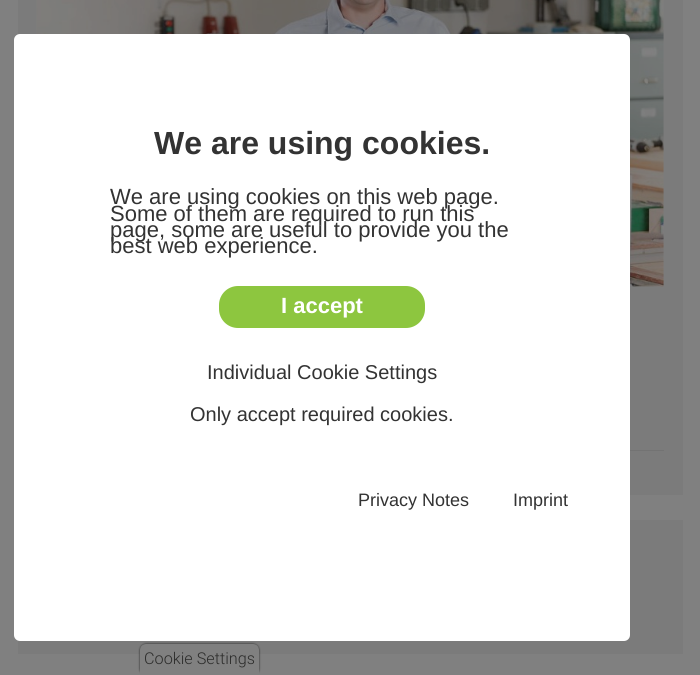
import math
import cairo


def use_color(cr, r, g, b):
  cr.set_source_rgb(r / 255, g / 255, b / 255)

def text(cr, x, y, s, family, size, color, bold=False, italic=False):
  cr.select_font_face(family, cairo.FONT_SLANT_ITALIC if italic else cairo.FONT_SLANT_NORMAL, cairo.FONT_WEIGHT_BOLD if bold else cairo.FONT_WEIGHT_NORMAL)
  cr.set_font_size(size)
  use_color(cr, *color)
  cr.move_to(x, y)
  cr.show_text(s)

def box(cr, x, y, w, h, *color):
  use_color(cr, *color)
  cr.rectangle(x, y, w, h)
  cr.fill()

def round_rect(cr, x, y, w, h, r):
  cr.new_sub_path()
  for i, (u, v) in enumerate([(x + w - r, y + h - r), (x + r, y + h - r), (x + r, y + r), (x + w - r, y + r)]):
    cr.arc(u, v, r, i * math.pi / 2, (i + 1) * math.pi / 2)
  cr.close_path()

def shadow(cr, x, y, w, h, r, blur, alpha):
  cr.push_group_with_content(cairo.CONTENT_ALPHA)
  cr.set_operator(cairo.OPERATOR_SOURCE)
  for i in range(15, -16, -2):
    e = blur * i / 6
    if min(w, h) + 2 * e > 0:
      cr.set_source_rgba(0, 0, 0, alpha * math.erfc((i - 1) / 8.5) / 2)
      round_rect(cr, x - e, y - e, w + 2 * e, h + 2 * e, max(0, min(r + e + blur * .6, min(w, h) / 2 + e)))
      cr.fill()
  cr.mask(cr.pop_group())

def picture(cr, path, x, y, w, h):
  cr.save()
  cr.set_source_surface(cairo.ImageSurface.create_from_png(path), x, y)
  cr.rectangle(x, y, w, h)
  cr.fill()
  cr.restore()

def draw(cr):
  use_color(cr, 128, 128, 128)
  cr.paint()
  box(cr, 18, 0, 665, 495, 123, 123, 123)
  box(cr, 630, 450, 34, 1, 115, 115, 115)
  picture(cr, "img_01.png", 36, 0, 628, 287)
  box(cr, 18, 520, 665, 134, 123, 123, 123)
  use_color(cr, 0, 0, 0)
  shadow(cr, 140, 644, 119, 31, 6, 1, 0.75)
  use_color(cr, 255, 255, 255)
  round_rect(cr, 14, 34, 616, 607, 6)
  cr.fill()
  use_color(cr, 141, 198, 63)
  round_rect(cr, 219, 286, 206, 42, 19)
  cr.fill()
  use_color(cr, 128, 128, 128)
  cr.new_path()
  cr.move_to(146, 644)
  cr.line_to(253, 644)
  cr.curve_to(256.5, 644, 259, 646.5, 259, 650)
  cr.line_to(259, 675)
  cr.line_to(140, 675)
  cr.line_to(140, 650)
  cr.curve_to(140, 646.5, 142.5, 644, 146, 644)
  cr.close_path()
  cr.fill()
  text(cr, 154, 154, "We are using cookies.", "Liberation Sans", 32, (51, 51, 51), bold=True)
  text(cr, 110, 204, "We are using cookies on this web page.", "Liberation Sans", 22, (51, 51, 51))
  text(cr, 110, 221, "Some of them are required to run this", "Liberation Sans", 22, (51, 51, 51))
  text(cr, 110, 237, "page, some are useful to provide you the", "Liberation Sans", 22, (51, 51, 51))
  text(cr, 110, 253, "best web experience.", "Liberation Sans", 22, (51, 51, 51))
  text(cr, 281, 313, "I accept", "Liberation Sans", 22, (255, 255, 255), bold=True)
  text(cr, 207, 379, "Individual Cookie Settings", "Liberation Sans", 20, (51, 51, 51))
  text(cr, 190, 421, "Only accept required cookies.", "Liberation Sans", 20, (51, 51, 51))
  text(cr, 358, 506, "Privacy Notes", "Liberation Sans", 18, (51, 51, 51))
  text(cr, 513, 506, "Imprint", "Liberation Sans", 18, (51, 51, 51))
  text(cr, 144, 664, "Cookie Settings", "Roboto Light", 16.25, (44, 44, 43))


surface = cairo.ImageSurface(cairo.FORMAT_RGB24, 700, 675)
cr = cairo.Context(surface)
options = cairo.FontOptions()
options.set_hint_metrics(cairo.HINT_METRICS_OFF)
options.set_hint_style(cairo.HINT_STYLE_NONE)
cr.set_font_options(options)
cr.set_miter_limit(4)
draw(cr)
surface.write_to_png("out.png")
